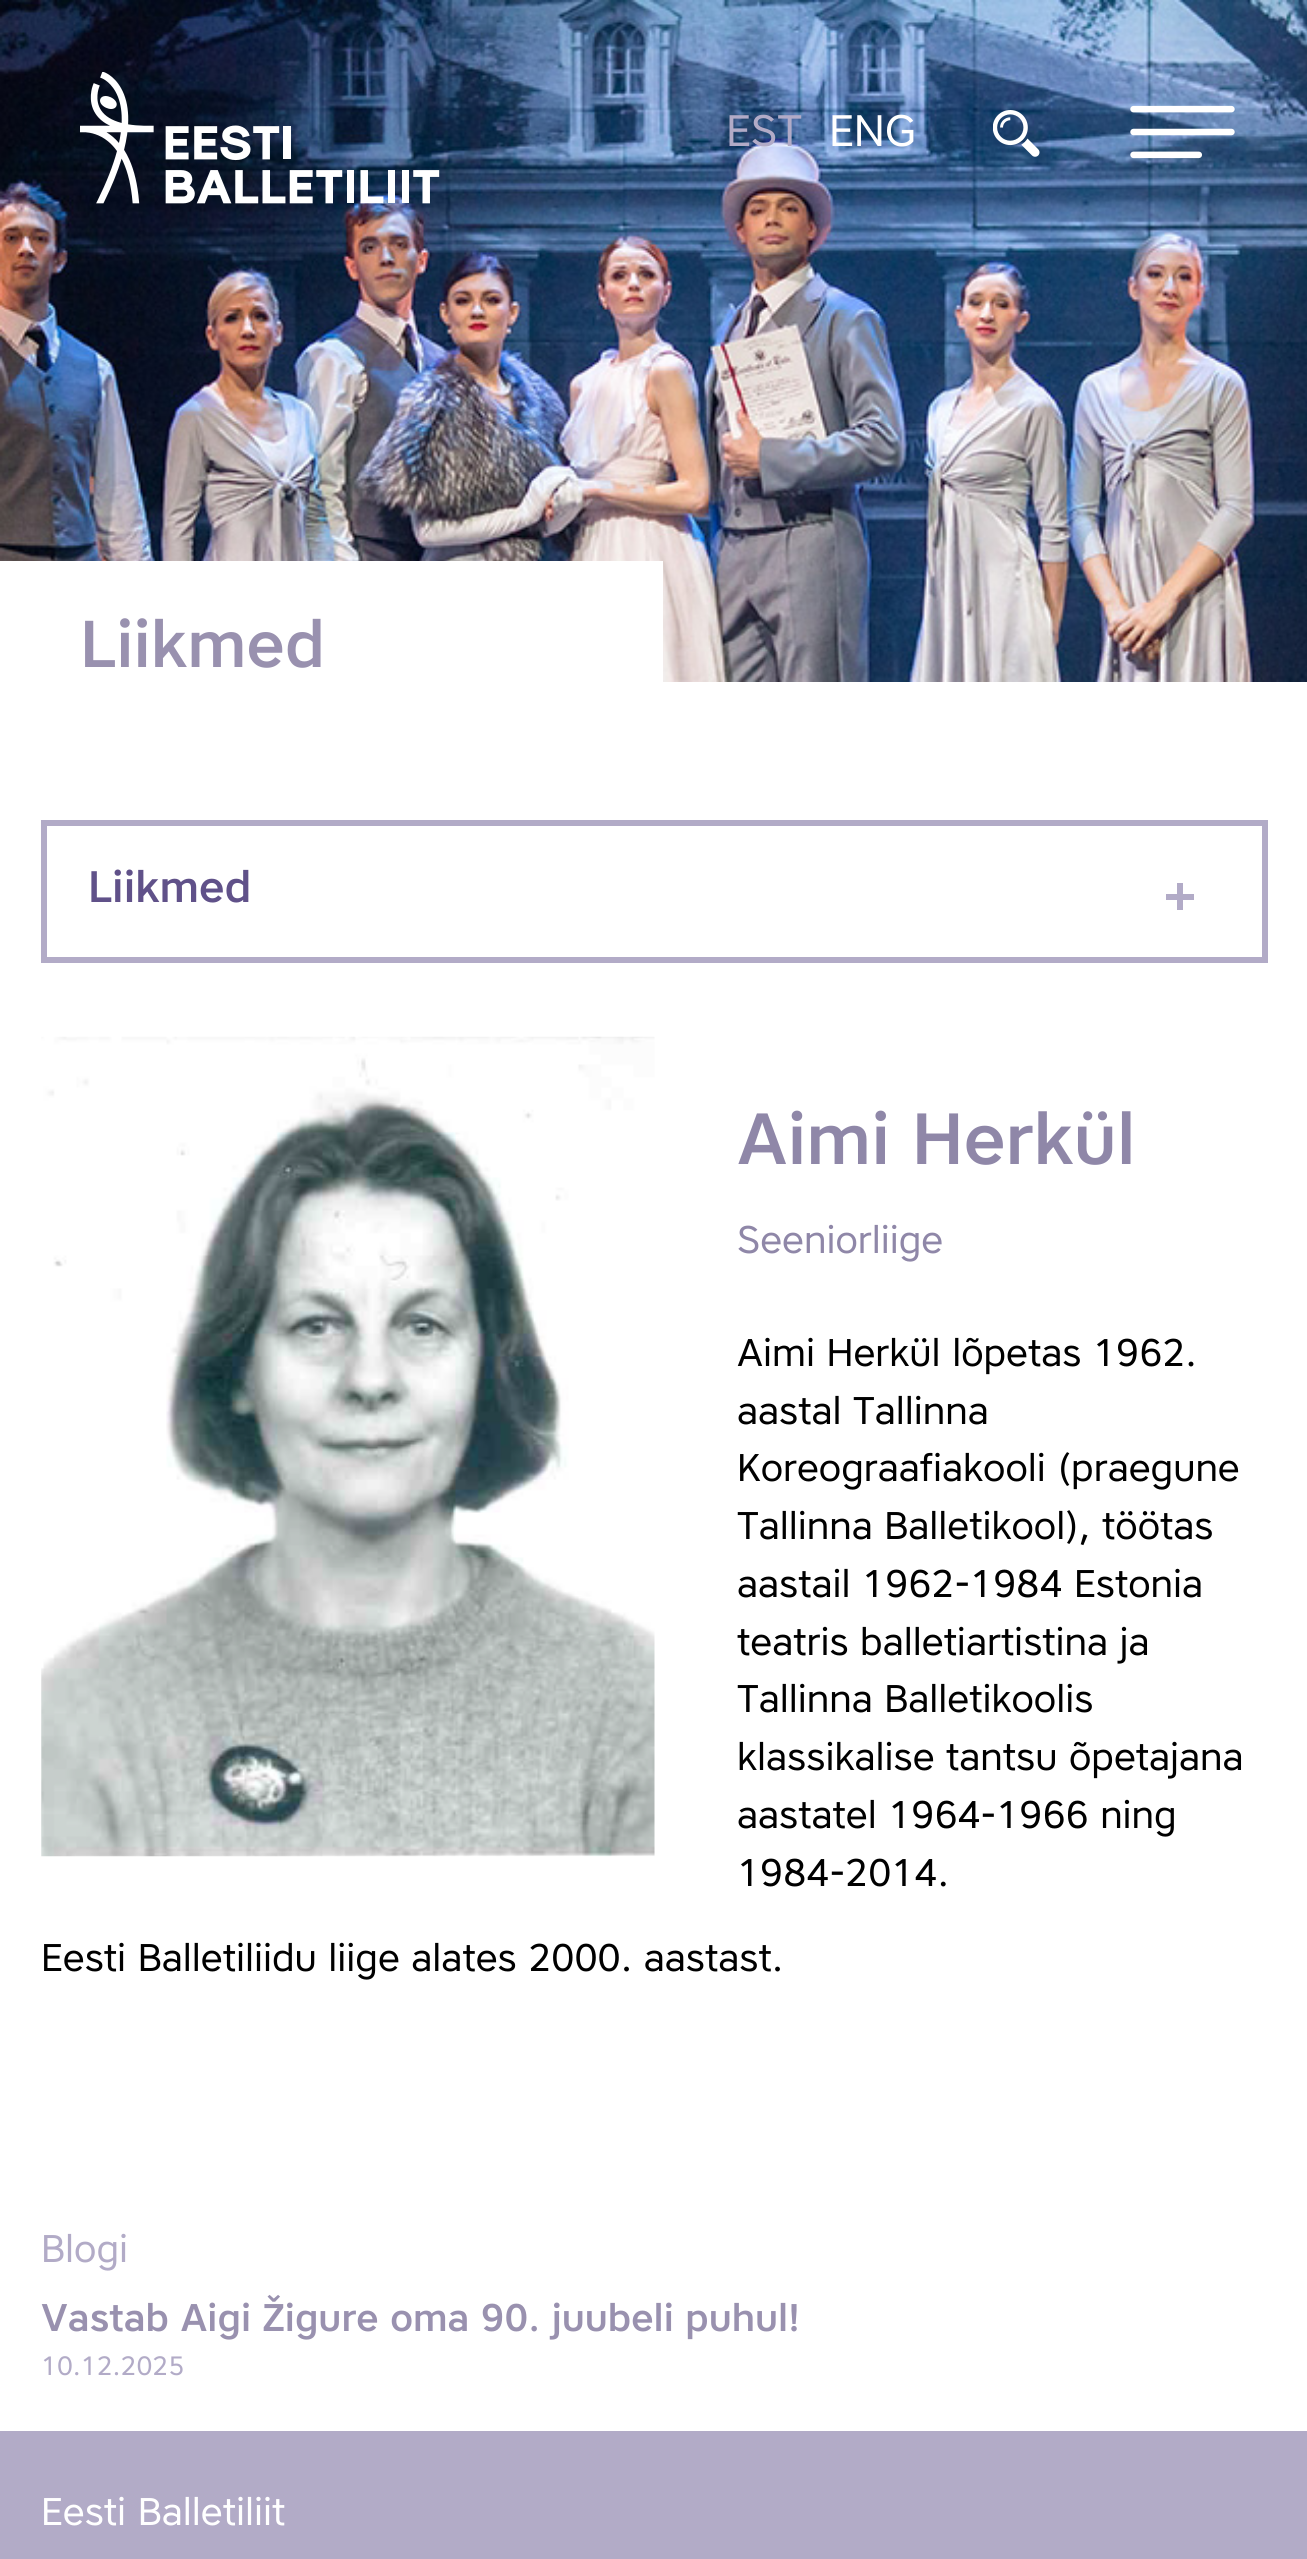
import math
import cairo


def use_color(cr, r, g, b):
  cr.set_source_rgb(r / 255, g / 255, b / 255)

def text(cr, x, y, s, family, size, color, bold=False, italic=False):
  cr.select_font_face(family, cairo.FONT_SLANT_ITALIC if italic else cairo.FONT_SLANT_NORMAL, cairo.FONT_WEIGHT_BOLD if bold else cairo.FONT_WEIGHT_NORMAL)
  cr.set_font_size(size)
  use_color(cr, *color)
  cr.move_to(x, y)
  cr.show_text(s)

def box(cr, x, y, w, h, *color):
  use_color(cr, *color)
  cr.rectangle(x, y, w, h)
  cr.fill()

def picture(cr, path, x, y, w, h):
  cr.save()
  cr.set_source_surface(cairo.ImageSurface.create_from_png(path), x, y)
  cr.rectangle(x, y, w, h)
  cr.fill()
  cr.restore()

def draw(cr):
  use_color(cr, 255, 255, 255)
  cr.paint()
  picture(cr, "img_01.png", 0, 0, 1307, 682)
  picture(cr, "img_02.png", 80, 72, 360, 132)
  picture(cr, "img_03.png", 993, 110, 47, 47)
  picture(cr, "img_04.png", 1130, 105, 105, 54)
  box(cr, 0, 561, 663, 121, 255, 255, 255)
  cr.rectangle(44, 823, 1221, 137)
  use_color(cr, 178, 171, 199)
  cr.set_line_width(6)
  cr.stroke()
  box(cr, 1166, 894, 28, 6, 178, 171, 199)
  box(cr, 1177, 883, 6, 27, 178, 171, 199)
  picture(cr, "img_05.png", 41, 1036, 614, 821)
  box(cr, 0, 2431, 1307, 128, 178, 171, 199)
  text(cr, 726, 146, "EST", "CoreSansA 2", 44, (178, 171, 199))
  text(cr, 829, 146, "ENG", "CoreSansA 2", 44, (255, 255, 255))
  text(cr, 80, 667, "Liikmed", "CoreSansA", 66, (153, 145, 175))
  text(cr, 88, 902, "Liikmed", "CoreSansA", 44, (96, 81, 137))
  text(cr, 737, 1164, "Aimi Herkül", "CoreSansA", 72.25, (143, 135, 168))
  text(cr, 737, 1253, "Seeniorliige", "CoreSansA 2", 38.5, (143, 135, 168))
  text(cr, 737, 1366, "Aimi Herkül lõpetas 1962.", "CoreSansA 2", 38.5, (0, 0, 0))
  text(cr, 737, 1424, "aastal Tallinna", "CoreSansA 2", 38.5, (0, 0, 0))
  text(cr, 737, 1481, "Koreograafiakooli (praegune", "CoreSansA 2", 38.5, (0, 0, 0))
  text(cr, 737, 1539, "Tallinna Balletikool), töötas", "CoreSansA 2", 38.5, (0, 0, 0))
  text(cr, 737, 1597, "aastail 1962-1984 Estonia", "CoreSansA 2", 38.5, (0, 0, 0))
  text(cr, 737, 1655, "teatris balletiartistina ja", "CoreSansA 2", 38.5, (0, 0, 0))
  text(cr, 737, 1712, "Tallinna Balletikoolis", "CoreSansA 2", 38.5, (0, 0, 0))
  text(cr, 737, 1770, "klassikalise tantsu õpetajana", "CoreSansA 2", 38.5, (0, 0, 0))
  text(cr, 737, 1828, "aastatel 1964-1966 ning", "CoreSansA 2", 38.5, (0, 0, 0))
  text(cr, 737, 1886, "1984-2014.", "CoreSansA 2", 38.5, (0, 0, 0))
  text(cr, 41, 1971, "Eesti Balletiliidu liige alates 2000. aastast.", "CoreSansA 2", 38.5, (0, 0, 0))
  text(cr, 41, 2262, "Blogi", "CoreSansA 2", 38.5, (178, 171, 199))
  text(cr, 41, 2331, "Vastab Aigi Žigure oma 90. juubeli puhul!", "CoreSansA", 38.5, (153, 145, 175))
  text(cr, 41, 2375, "10.12.2025", "CoreSansA 2", 26.5, (178, 171, 199))
  text(cr, 41, 2525, "Eesti Balletiliit", "CoreSansA 2", 38.5, (255, 255, 255))


surface = cairo.ImageSurface(cairo.FORMAT_RGB24, 1307, 2559)
cr = cairo.Context(surface)
options = cairo.FontOptions()
options.set_hint_metrics(cairo.HINT_METRICS_OFF)
options.set_hint_style(cairo.HINT_STYLE_NONE)
cr.set_font_options(options)
cr.set_miter_limit(4)
draw(cr)
surface.write_to_png("out.png")
